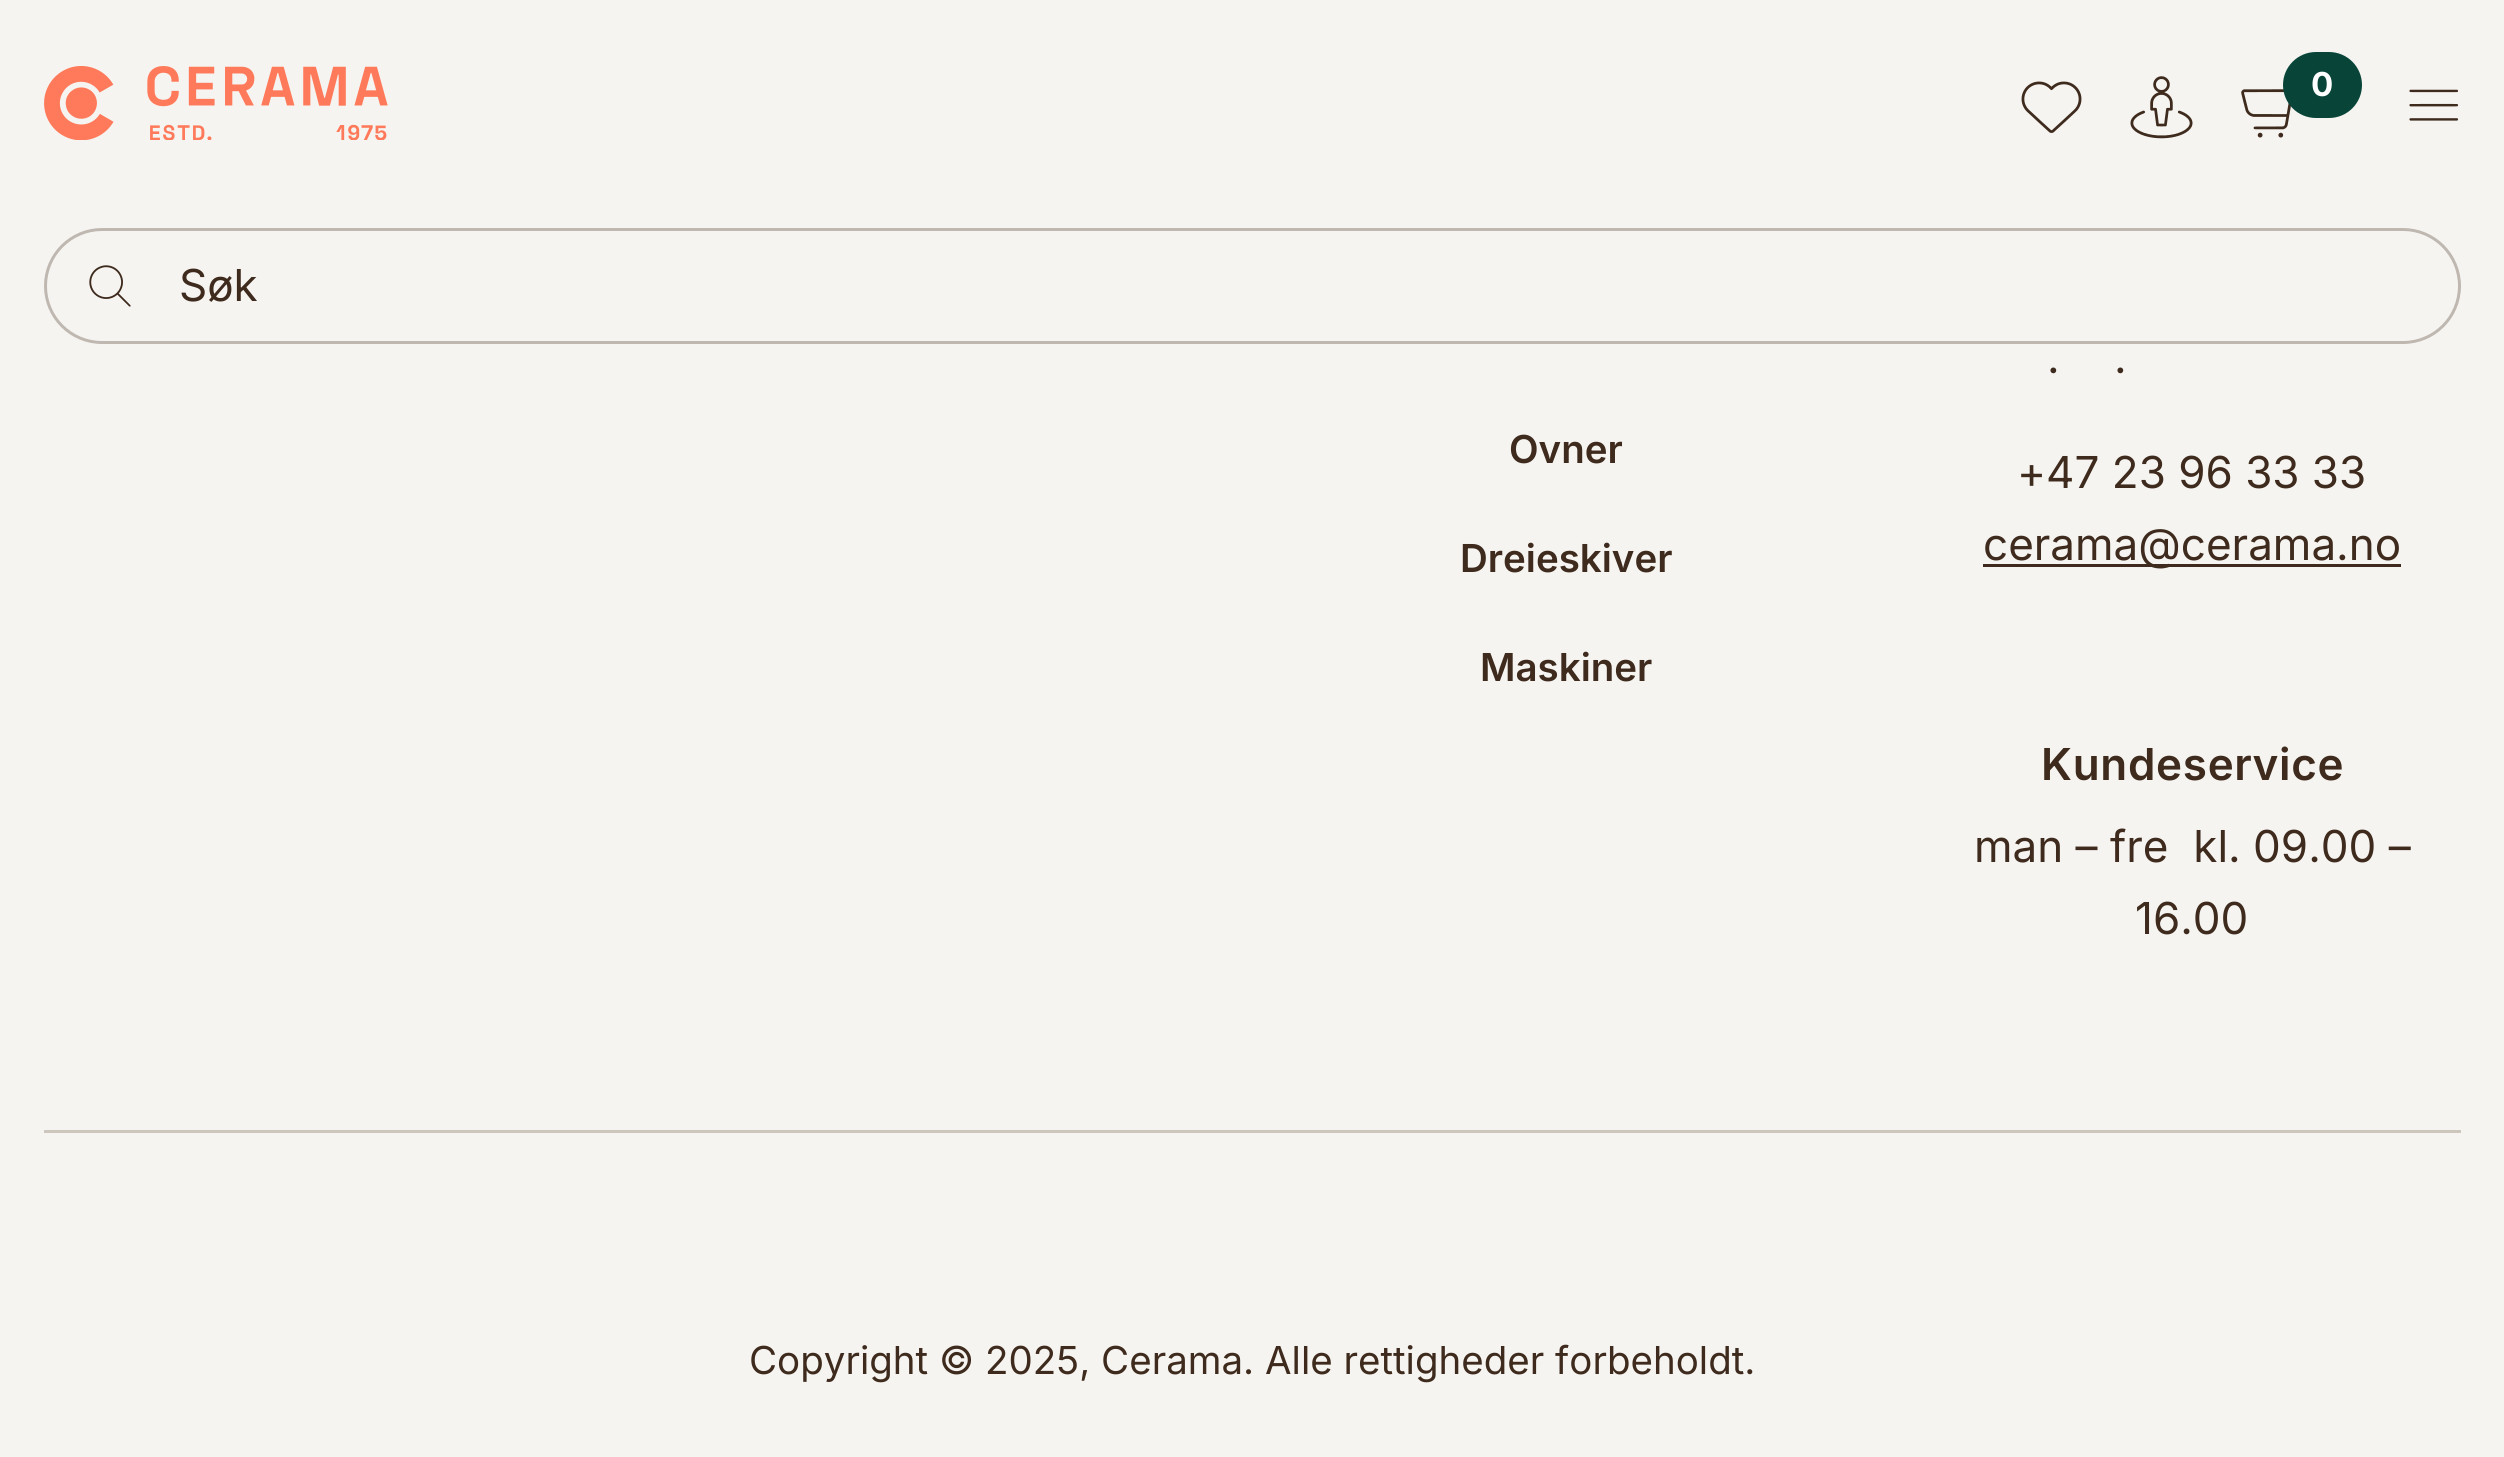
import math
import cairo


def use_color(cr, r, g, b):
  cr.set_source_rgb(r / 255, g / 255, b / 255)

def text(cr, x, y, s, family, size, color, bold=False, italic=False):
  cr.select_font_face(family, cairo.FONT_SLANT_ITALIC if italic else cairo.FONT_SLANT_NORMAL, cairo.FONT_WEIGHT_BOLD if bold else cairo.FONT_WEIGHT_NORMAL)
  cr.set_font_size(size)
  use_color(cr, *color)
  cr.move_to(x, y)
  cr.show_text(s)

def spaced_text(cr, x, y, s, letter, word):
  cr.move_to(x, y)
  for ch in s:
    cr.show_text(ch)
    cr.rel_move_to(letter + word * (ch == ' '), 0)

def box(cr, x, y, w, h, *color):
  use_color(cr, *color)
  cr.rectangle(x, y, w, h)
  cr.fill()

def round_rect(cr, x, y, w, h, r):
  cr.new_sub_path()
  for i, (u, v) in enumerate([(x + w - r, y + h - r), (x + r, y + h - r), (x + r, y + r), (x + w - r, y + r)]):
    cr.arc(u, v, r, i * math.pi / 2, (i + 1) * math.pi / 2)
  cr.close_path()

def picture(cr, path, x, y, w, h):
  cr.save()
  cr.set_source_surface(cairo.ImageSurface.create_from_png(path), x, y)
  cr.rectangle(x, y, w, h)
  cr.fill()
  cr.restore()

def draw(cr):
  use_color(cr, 246, 244, 241)
  cr.paint()
  picture(cr, "img_01.png", 44, 66, 344, 74)
  picture(cr, "img_02.png", 2021, 81, 61, 52)
  picture(cr, "img_03.png", 2130, 76, 63, 63)
  picture(cr, "img_04.png", 2241, 89, 50, 49)
  use_color(cr, 8, 69, 56)
  round_rect(cr, 2283, 52, 79, 66, 33)
  cr.fill()
  picture(cr, "img_05.png", 2409, 89, 50, 32)
  round_rect(cr, 45.5, 229.5, 2414, 113, 56.5)
  use_color(cr, 191, 184, 177)
  cr.set_line_width(3)
  cr.stroke()
  picture(cr, "img_06.png", 89, 265, 42, 42)
  box(cr, 1983, 564, 418, 3, 62, 43, 29)
  box(cr, 44, 1130, 2417, 3, 205, 198, 188)
  text(cr, 2311, 96, "0", "Inter", 33, (255, 255, 255), bold=True)
  text(cr, 179, 301, "Søk", "Inter", 44, (62, 43, 29))
  text(cr, 1509, 463, "Ovner", "Inter SemiBold", 38.5, (62, 43, 29))
  text(cr, 1460, 572, "Dreieskiver", "Inter SemiBold", 38.5, (62, 43, 29))
  text(cr, 1480, 681, "Maskiner", "Inter SemiBold", 38.5, (62, 43, 29))
  text(cr, 2047, 373, ".", "Inter", 44, (62, 43, 29))
  text(cr, 2114, 373, ".", "Inter", 44, (62, 43, 29))
  text(cr, 2017, 488, "+47 23 96 33 33", "Inter", 44, (62, 43, 29))
  text(cr, 1983, 560, "cerama@cerama.no", "Inter", 44, (62, 43, 29))
  cr.select_font_face("Inter SemiBold")
  spaced_text(cr, 2041, 780, "Kundeservice", 0.7, 0)
  text(cr, 1974, 862, "man – fre  kl. 09.00 –", "Inter", 44, (62, 43, 29))
  text(cr, 2135, 934, "16.00", "Inter", 44, (62, 43, 29))
  text(cr, 749, 1374, "Copyright © 2025, Cerama. Alle rettigheder forbeholdt.", "Inter", 38.5, (62, 43, 29))


surface = cairo.ImageSurface(cairo.FORMAT_RGB24, 2504, 1457)
cr = cairo.Context(surface)
options = cairo.FontOptions()
options.set_hint_metrics(cairo.HINT_METRICS_OFF)
options.set_hint_style(cairo.HINT_STYLE_NONE)
cr.set_font_options(options)
cr.set_miter_limit(4)
draw(cr)
surface.write_to_png("out.png")
